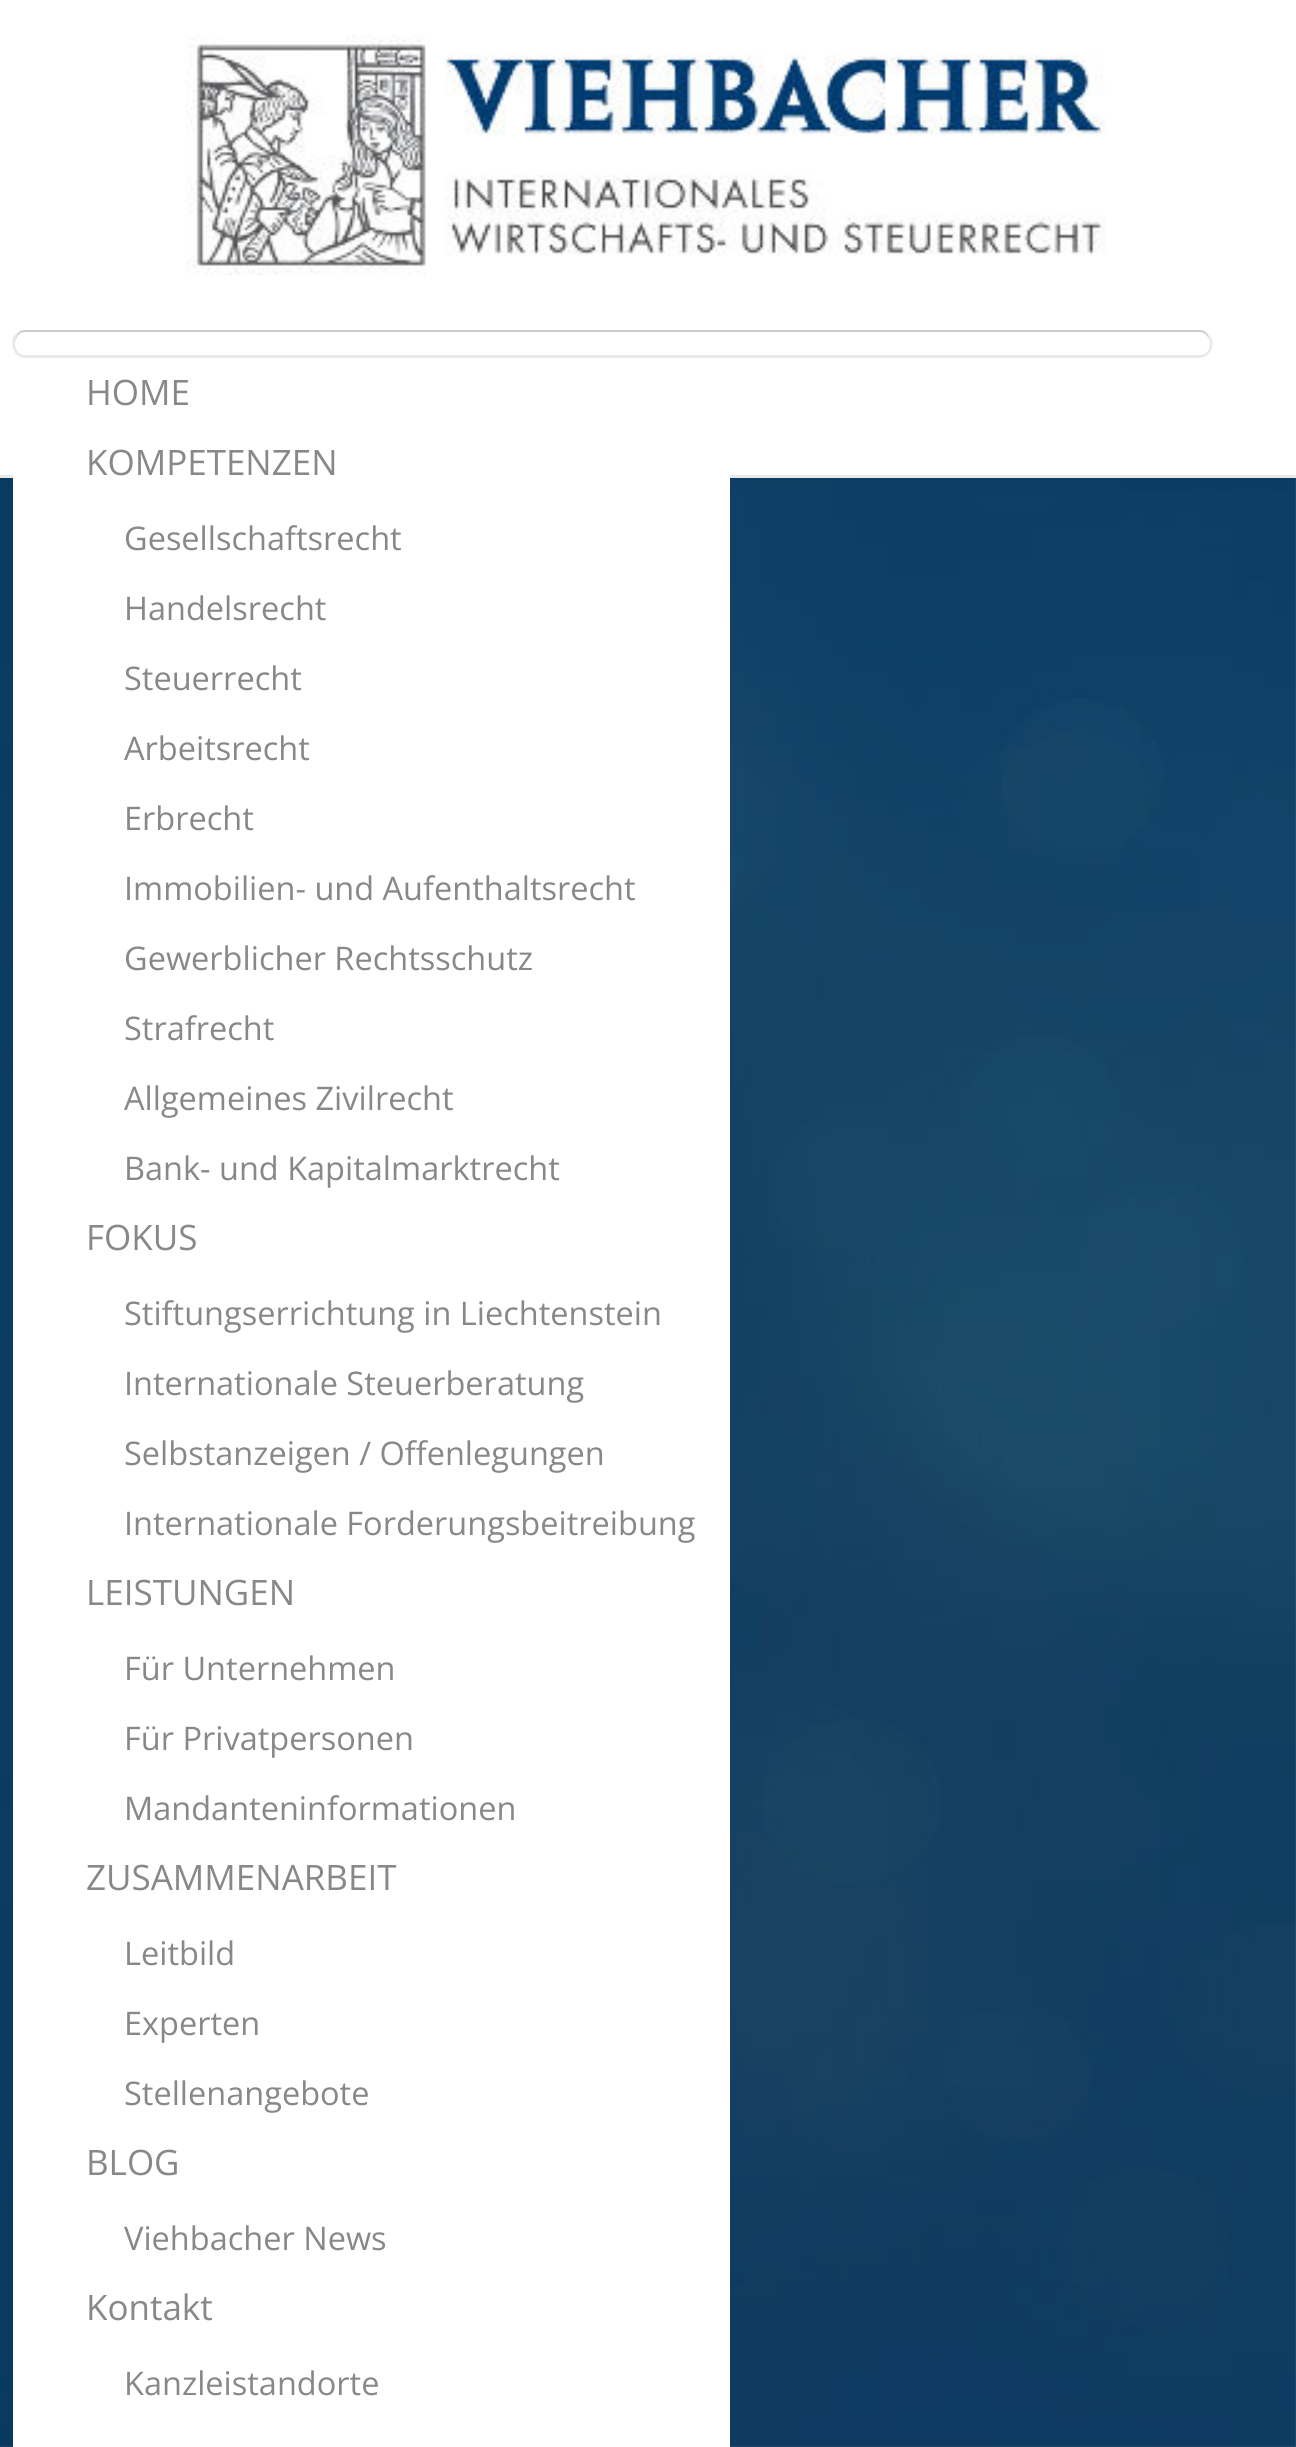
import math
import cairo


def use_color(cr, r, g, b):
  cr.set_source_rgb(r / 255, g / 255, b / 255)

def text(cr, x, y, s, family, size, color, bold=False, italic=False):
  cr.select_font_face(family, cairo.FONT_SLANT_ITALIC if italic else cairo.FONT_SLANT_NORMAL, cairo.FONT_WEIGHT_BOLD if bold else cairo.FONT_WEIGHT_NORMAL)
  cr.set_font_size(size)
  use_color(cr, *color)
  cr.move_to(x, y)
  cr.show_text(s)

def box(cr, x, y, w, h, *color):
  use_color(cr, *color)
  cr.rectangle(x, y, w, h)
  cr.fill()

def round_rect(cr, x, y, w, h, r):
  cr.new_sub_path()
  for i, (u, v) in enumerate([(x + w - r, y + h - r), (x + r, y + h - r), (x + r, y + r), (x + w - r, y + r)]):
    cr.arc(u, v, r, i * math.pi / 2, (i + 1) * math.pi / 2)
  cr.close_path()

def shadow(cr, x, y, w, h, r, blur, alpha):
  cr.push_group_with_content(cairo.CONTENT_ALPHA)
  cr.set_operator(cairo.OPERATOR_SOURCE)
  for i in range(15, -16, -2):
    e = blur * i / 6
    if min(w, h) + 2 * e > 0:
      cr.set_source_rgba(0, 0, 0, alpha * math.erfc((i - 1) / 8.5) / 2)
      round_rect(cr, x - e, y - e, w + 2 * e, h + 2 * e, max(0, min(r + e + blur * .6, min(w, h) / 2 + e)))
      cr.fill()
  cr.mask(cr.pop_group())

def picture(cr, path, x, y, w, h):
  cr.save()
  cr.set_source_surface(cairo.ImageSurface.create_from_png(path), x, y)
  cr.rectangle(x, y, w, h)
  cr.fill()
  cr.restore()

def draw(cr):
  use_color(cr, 255, 255, 255)
  cr.paint()
  picture(cr, "img_02.png", 0, 478, 1296, 1969)
  use_color(cr, 0, 0, 0)
  shadow(cr, 0, 0, 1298, 478, 0, 9, 0.09)
  box(cr, 0, 0, 1296, 475, 255, 255, 255)
  box(cr, 0, 475, 1296, 3, 233, 233, 233)
  picture(cr, "img_01.png", 185, 35, 921, 240)
  use_color(cr, 203, 203, 203)
  cr.new_path()
  cr.move_to(25, 332)
  cr.line_to(1200, 332)
  cr.curve_to(1207, 333, 1210, 339, 1210, 345)
  cr.curve_to(1210, 339, 1208, 330, 1200, 330)
  cr.line_to(25, 330)
  cr.curve_to(18, 330, 15, 337, 15, 343)
  cr.curve_to(16, 337, 19, 332, 25, 332)
  cr.close_path()
  cr.fill()
  use_color(cr, 233, 233, 233)
  cr.set_fill_rule(cairo.FILL_RULE_EVEN_ODD)
  cr.new_path()
  cr.move_to(25, 330)
  cr.line_to(1200, 330)
  cr.curve_to(1204, 330, 1208, 332, 1210, 336)
  cr.curve_to(1216, 344, 1211, 357, 1200, 358)
  cr.line_to(25, 358)
  cr.curve_to(8, 357, 8, 330, 25, 330)
  cr.close_path()
  cr.move_to(25, 330)
  cr.line_to(1200, 330)
  cr.curve_to(1207, 330, 1210, 337, 1210, 342)
  cr.curve_to(1210, 349, 1207, 355, 1200, 355)
  cr.line_to(25, 355)
  cr.curve_to(11, 355, 12, 330, 25, 330)
  cr.close_path()
  cr.fill()
  box(cr, 13, 475, 717, 1972, 255, 255, 255)
  text(cr, 86, 405, "HOME", "Open Sans", 35, (136, 136, 136))
  text(cr, 86, 475, "KOMPETENZEN", "Open Sans", 35, (136, 136, 136))
  text(cr, 124, 550, "Gesellschaftsrecht", "Open Sans", 32.5, (136, 136, 136))
  text(cr, 124, 620, "Handelsrecht", "Open Sans", 32.5, (136, 136, 136))
  text(cr, 124, 690, "Steuerrecht", "Open Sans", 32.5, (136, 136, 136))
  text(cr, 124, 760, "Arbeitsrecht", "Open Sans", 32.5, (136, 136, 136))
  text(cr, 124, 830, "Erbrecht", "Open Sans", 32.5, (136, 136, 136))
  text(cr, 124, 900, "Immobilien- und Aufenthaltsrecht", "Open Sans", 32.5, (136, 136, 136))
  text(cr, 124, 970, "Gewerblicher Rechtsschutz", "Open Sans", 32.5, (136, 136, 136))
  text(cr, 124, 1040, "Strafrecht", "Open Sans", 32.5, (136, 136, 136))
  text(cr, 124, 1110, "Allgemeines Zivilrecht", "Open Sans", 32.5, (136, 136, 136))
  text(cr, 124, 1180, "Bank- und Kapitalmarktrecht", "Open Sans", 32.5, (136, 136, 136))
  text(cr, 86, 1250, "FOKUS", "Open Sans", 35, (136, 136, 136))
  text(cr, 124, 1325, "Stiftungserrichtung in Liechtenstein", "Open Sans", 32.5, (136, 136, 136))
  text(cr, 124, 1395, "Internationale Steuerberatung", "Open Sans", 32.5, (136, 136, 136))
  text(cr, 124, 1465, "Selbstanzeigen / Offenlegungen", "Open Sans", 32.5, (136, 136, 136))
  text(cr, 124, 1535, "Internationale Forderungsbeitreibung", "Open Sans", 32.5, (136, 136, 136))
  text(cr, 86, 1605, "LEISTUNGEN", "Open Sans", 35, (136, 136, 136))
  text(cr, 124, 1680, "Für Unternehmen", "Open Sans", 32.5, (136, 136, 136))
  text(cr, 124, 1750, "Für Privatpersonen", "Open Sans", 32.5, (136, 136, 136))
  text(cr, 124, 1820, "Mandanteninformationen", "Open Sans", 32.5, (136, 136, 136))
  text(cr, 86, 1890, "ZUSAMMENARBEIT", "Open Sans", 35, (136, 136, 136))
  text(cr, 124, 1965, "Leitbild", "Open Sans", 32.5, (136, 136, 136))
  text(cr, 124, 2035, "Experten", "Open Sans", 32.5, (136, 136, 136))
  text(cr, 124, 2105, "Stellenangebote", "Open Sans", 32.5, (136, 136, 136))
  text(cr, 86, 2175, "BLOG", "Open Sans", 35, (136, 136, 136))
  text(cr, 124, 2250, "Viehbacher News", "Open Sans", 32.5, (136, 136, 136))
  text(cr, 86, 2320, "Kontakt", "Open Sans", 35, (136, 136, 136))
  text(cr, 124, 2395, "Kanzleistandorte", "Open Sans", 32.5, (136, 136, 136))


surface = cairo.ImageSurface(cairo.FORMAT_RGB24, 1296, 2447)
cr = cairo.Context(surface)
options = cairo.FontOptions()
options.set_hint_metrics(cairo.HINT_METRICS_OFF)
options.set_hint_style(cairo.HINT_STYLE_NONE)
cr.set_font_options(options)
cr.set_miter_limit(4)
draw(cr)
surface.write_to_png("out.png")
